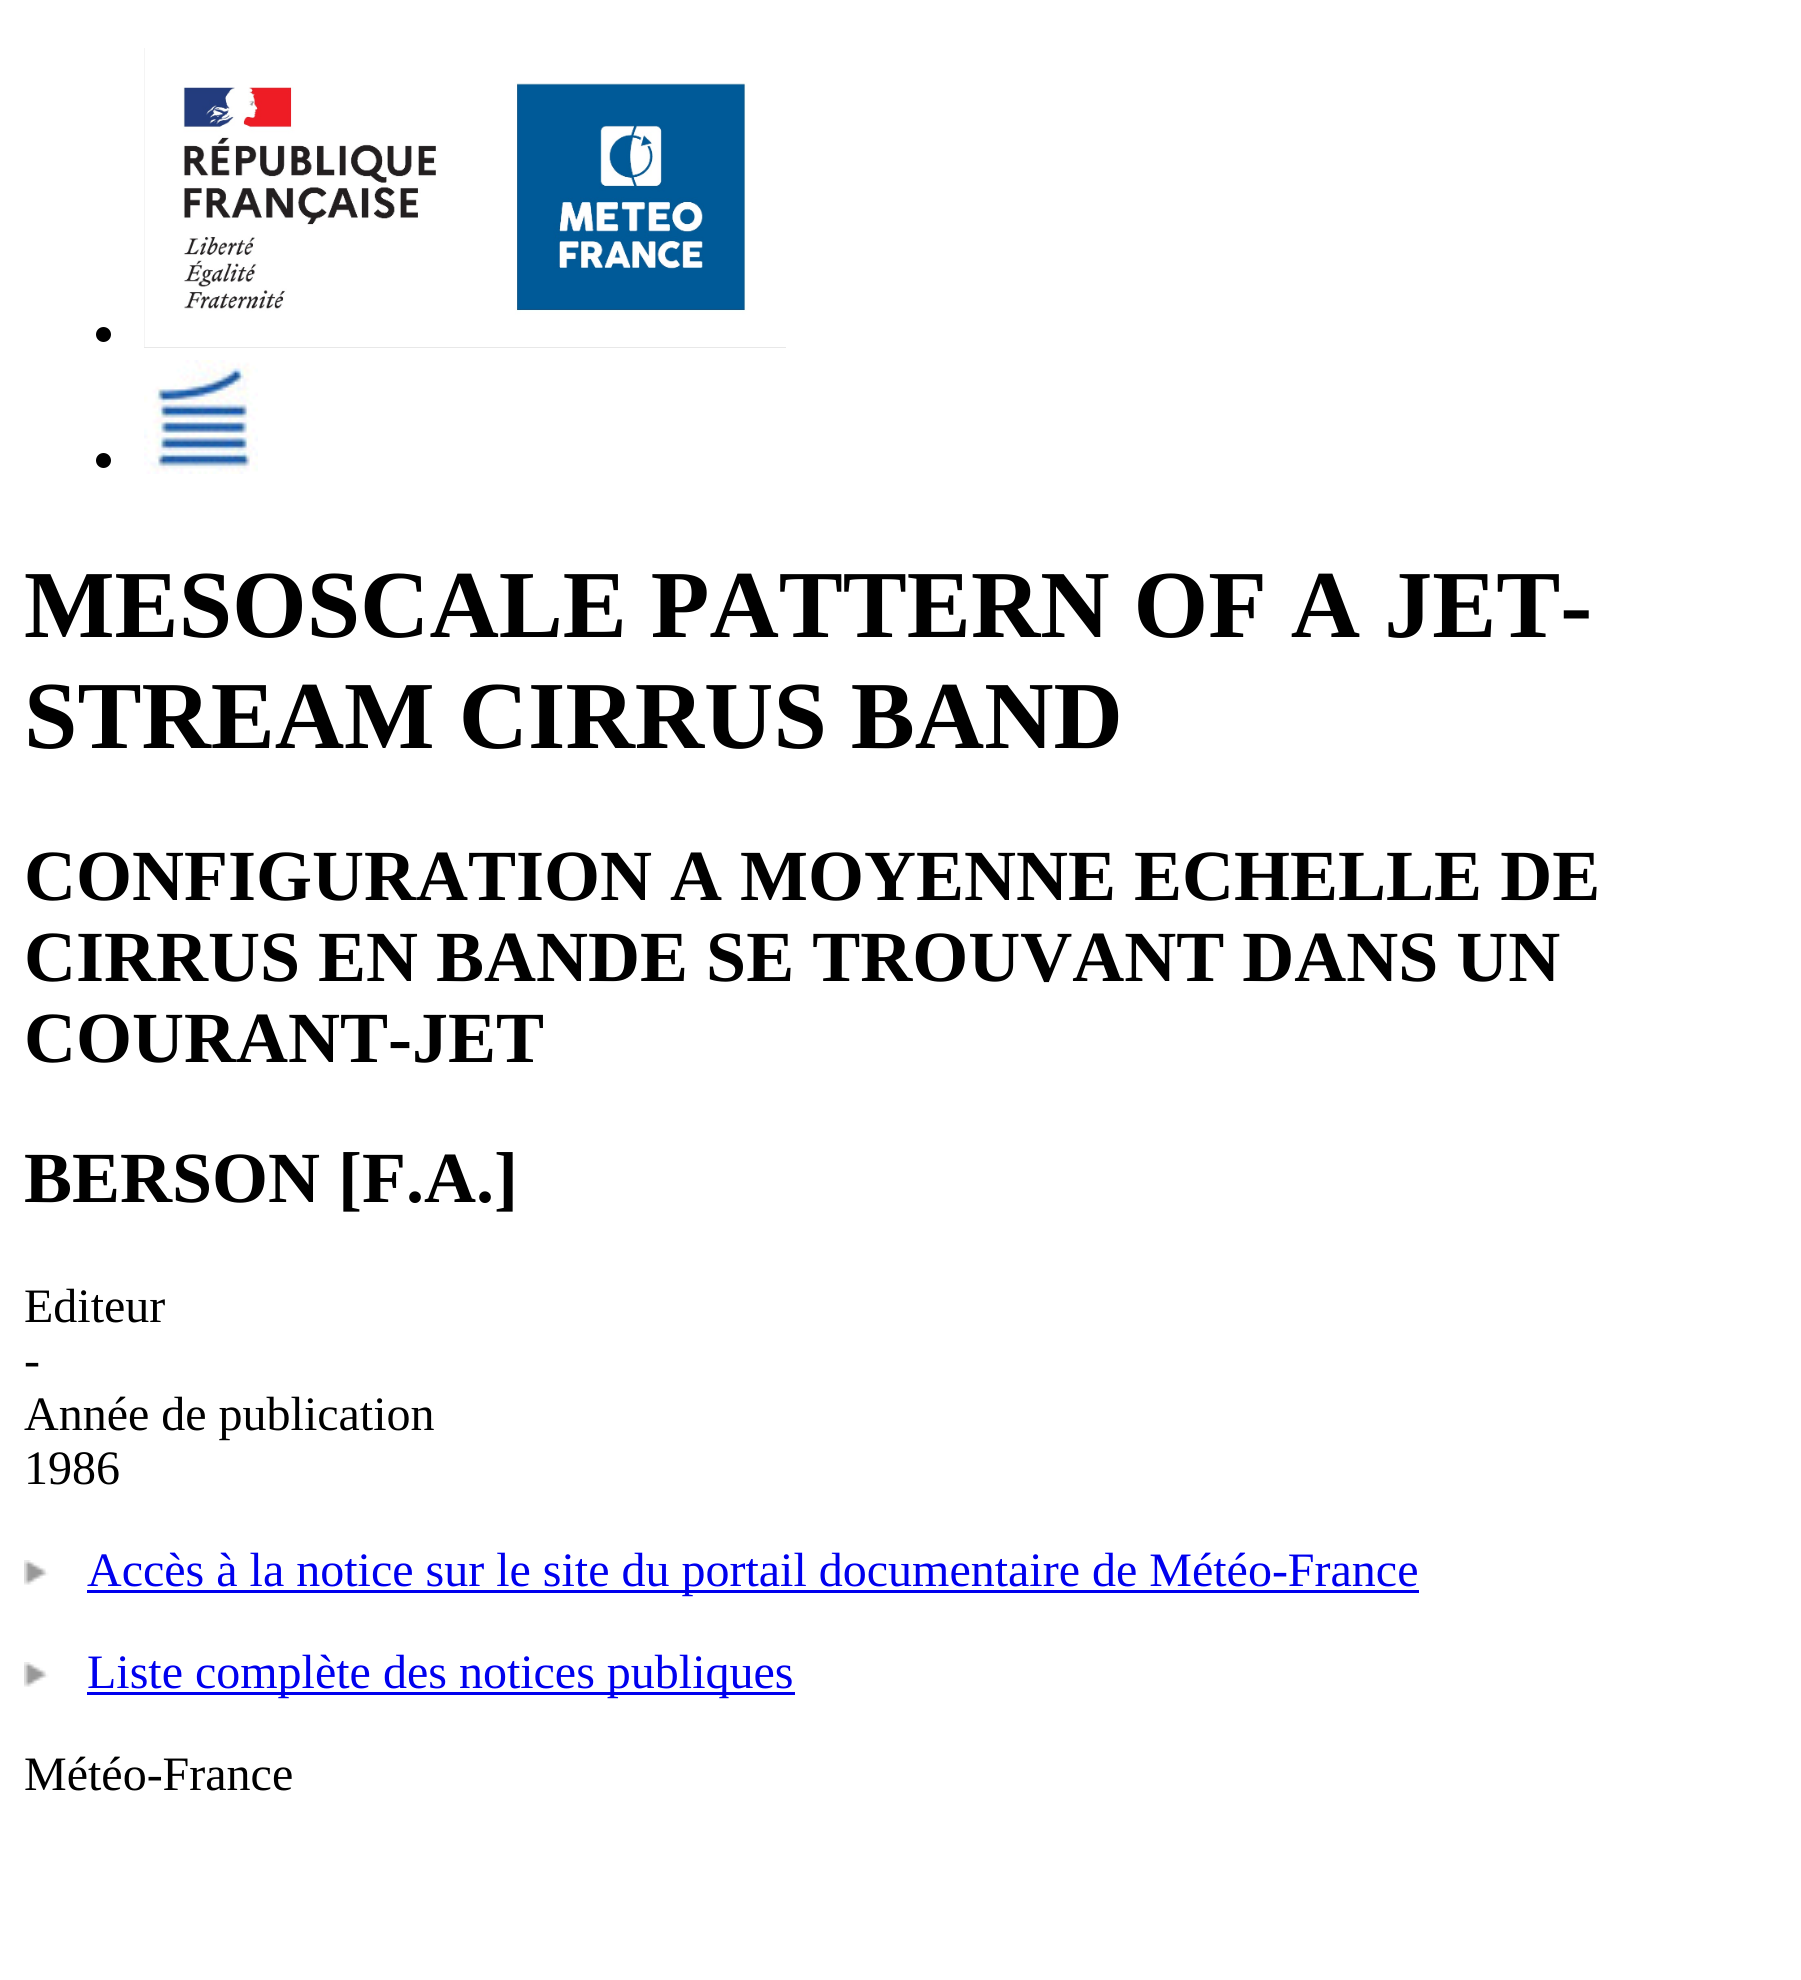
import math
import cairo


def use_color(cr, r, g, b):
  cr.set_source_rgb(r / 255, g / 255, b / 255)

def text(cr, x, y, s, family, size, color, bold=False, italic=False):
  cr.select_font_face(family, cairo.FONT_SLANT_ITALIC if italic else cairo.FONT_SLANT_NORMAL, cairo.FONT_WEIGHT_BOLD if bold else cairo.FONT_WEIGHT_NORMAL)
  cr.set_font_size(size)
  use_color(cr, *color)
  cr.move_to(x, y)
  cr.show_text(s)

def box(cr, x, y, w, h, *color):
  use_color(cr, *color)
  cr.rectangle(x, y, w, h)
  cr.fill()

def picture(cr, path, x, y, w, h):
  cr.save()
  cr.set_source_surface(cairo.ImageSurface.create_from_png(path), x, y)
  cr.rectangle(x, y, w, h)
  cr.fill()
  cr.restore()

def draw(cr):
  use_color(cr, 255, 255, 255)
  cr.paint()
  use_color(cr, 0, 0, 0)
  cr.arc(103.5, 334.5, 7.5, 0, 2 * math.pi)
  cr.fill()
  picture(cr, "img_01.png", 144, 48, 642, 300)
  cr.arc(103.5, 460.5, 7.5, 0, 2 * math.pi)
  cr.fill()
  picture(cr, "img_02.png", 144, 360, 114, 114)
  picture(cr, "img_03.png", 24, 1560, 25, 25)
  box(cr, 87, 1590, 1332, 3, 0, 0, 238)
  picture(cr, "img_03.png", 24, 1662, 25, 25)
  box(cr, 87, 1692, 708, 3, 0, 0, 238)
  text(cr, 24, 637, "MESOSCALE PATTERN OF A JET-", "Liberation Serif", 96, (0, 0, 0), bold=True)
  text(cr, 24, 748, "STREAM CIRRUS BAND", "Liberation Serif", 96, (0, 0, 0), bold=True)
  text(cr, 24, 900, "CONFIGURATION A MOYENNE ECHELLE DE", "Liberation Serif", 72, (0, 0, 0), bold=True)
  text(cr, 24, 981, "CIRRUS EN BANDE SE TROUVANT DANS UN", "Liberation Serif", 72, (0, 0, 0), bold=True)
  text(cr, 24, 1062, "COURANT-JET", "Liberation Serif", 72, (0, 0, 0), bold=True)
  text(cr, 24, 1202, "BERSON [F.A.]", "Liberation Serif", 72, (0, 0, 0), bold=True)
  text(cr, 24, 1322, "Editeur", "Liberation Serif", 48, (0, 0, 0))
  text(cr, 24, 1376, "-", "Liberation Serif", 48, (0, 0, 0))
  text(cr, 24, 1430, "Année de publication", "Liberation Serif", 48, (0, 0, 0))
  text(cr, 24, 1484, "1986", "Liberation Serif", 48, (0, 0, 0))
  text(cr, 87, 1586, "Accès à la notice sur le site du portail documentaire de Météo-France", "Liberation Serif", 48, (0, 0, 238))
  text(cr, 87, 1688, "Liste complète des notices publiques", "Liberation Serif", 48, (0, 0, 238))
  text(cr, 24, 1790, "Météo-France", "Liberation Serif", 48, (0, 0, 0))


surface = cairo.ImageSurface(cairo.FORMAT_RGB24, 1801, 1980)
cr = cairo.Context(surface)
options = cairo.FontOptions()
options.set_hint_metrics(cairo.HINT_METRICS_OFF)
options.set_hint_style(cairo.HINT_STYLE_NONE)
cr.set_font_options(options)
cr.set_miter_limit(4)
draw(cr)
surface.write_to_png("out.png")
